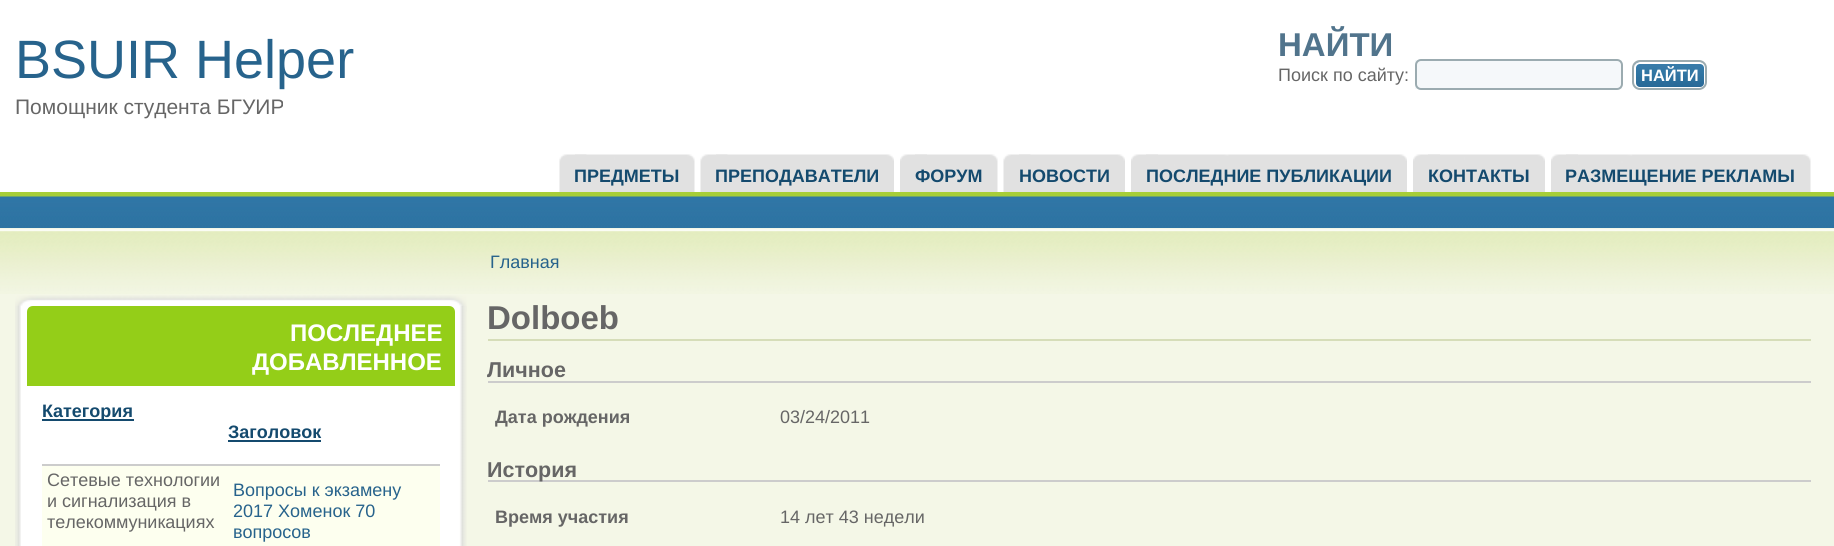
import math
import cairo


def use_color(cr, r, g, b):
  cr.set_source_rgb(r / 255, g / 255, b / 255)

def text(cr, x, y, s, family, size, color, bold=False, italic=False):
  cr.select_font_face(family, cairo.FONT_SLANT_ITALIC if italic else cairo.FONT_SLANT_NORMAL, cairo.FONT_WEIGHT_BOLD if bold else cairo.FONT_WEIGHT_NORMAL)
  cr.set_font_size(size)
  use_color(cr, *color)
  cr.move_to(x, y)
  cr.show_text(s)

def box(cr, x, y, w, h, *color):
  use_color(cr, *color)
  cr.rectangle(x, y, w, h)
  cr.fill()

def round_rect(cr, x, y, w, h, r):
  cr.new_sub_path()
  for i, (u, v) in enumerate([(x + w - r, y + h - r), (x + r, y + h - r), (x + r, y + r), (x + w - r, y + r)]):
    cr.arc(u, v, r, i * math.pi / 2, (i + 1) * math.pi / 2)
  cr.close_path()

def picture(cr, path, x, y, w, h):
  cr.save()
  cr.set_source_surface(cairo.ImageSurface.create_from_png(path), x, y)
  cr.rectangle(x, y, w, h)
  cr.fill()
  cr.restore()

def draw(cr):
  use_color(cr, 255, 255, 255)
  cr.paint()
  box(cr, 1415, 60, 207, 29, 245, 248, 250)
  round_rect(cr, 1416, 60, 206, 29, 5)
  use_color(cr, 155, 171, 176)
  cr.stroke()
  picture(cr, "img_01.png", 1635, 62, 70, 26)
  round_rect(cr, 1635, 63, 70, 25, 5)
  use_color(cr, 255, 255, 255)
  cr.stroke()
  round_rect(cr, 1633, 61, 73, 28, 7)
  use_color(cr, 155, 171, 176)
  cr.stroke()
  picture(cr, "img_02.png", 559, 154, 28, 38)
  picture(cr, "img_03.png", 575, 154, 120, 38)
  picture(cr, "img_02.png", 700, 154, 28, 38)
  picture(cr, "img_04.png", 716, 154, 178, 38)
  picture(cr, "img_05.png", 900, 154, 27, 38)
  picture(cr, "img_06.png", 915, 154, 83, 38)
  picture(cr, "img_07.png", 1003, 154, 28, 38)
  picture(cr, "img_08.png", 1019, 154, 106, 38)
  picture(cr, "img_09.png", 1131, 154, 27, 38)
  picture(cr, "img_10.png", 1146, 154, 261, 38)
  picture(cr, "img_05.png", 1413, 154, 27, 38)
  picture(cr, "img_11.png", 1428, 154, 117, 38)
  picture(cr, "img_05.png", 1551, 154, 27, 38)
  picture(cr, "img_12.png", 1566, 154, 245, 38)
  picture(cr, "img_13.png", 0, 192, 1834, 36)
  box(cr, 0, 228, 1834, 318, 244, 247, 231)
  picture(cr, "img_14.png", 0, 229, 1834, 65)
  picture(cr, "img_15.png", 15, 295, 435, 11)
  picture(cr, "img_16.png", 450, 295, 17, 17)
  picture(cr, "img_17.png", 21, 306, 446, 240)
  picture(cr, "img_18.png", 15, 306, 6, 240)
  use_color(cr, 148, 206, 24)
  cr.new_path()
  cr.move_to(33, 306)
  cr.line_to(449, 306)
  cr.curve_to(452.5, 306, 455, 308.5, 455, 312)
  cr.line_to(455, 386)
  cr.line_to(27, 386)
  cr.line_to(27, 312)
  cr.curve_to(27, 308.5, 29.5, 306, 33, 306)
  cr.close_path()
  cr.fill()
  box(cr, 42, 419, 92, 2, 20, 74, 110)
  box(cr, 228, 440, 93, 2, 20, 74, 110)
  box(cr, 42, 464, 398, 2, 204, 204, 204)
  box(cr, 42, 466, 398, 80, 253, 255, 239)
  box(cr, 488, 339, 1323, 2, 214, 221, 185)
  box(cr, 488, 381, 1323, 2, 204, 204, 204)
  box(cr, 488, 480, 1323, 2, 204, 204, 204)
  text(cr, 15, 78, "BSUIR Helper", "Liberation Sans", 54, (39, 99, 140))
  text(cr, 15, 114, "Помощник студента БГУИР", "Liberation Sans", 21, (102, 102, 102))
  text(cr, 1278, 56, "НАЙТИ", "Liberation Sans", 33, (81, 116, 140), bold=True)
  text(cr, 1278, 81, "Поиск по сайту:", "Liberation Sans", 18, (102, 102, 102))
  text(cr, 1641, 81, "НАЙТИ", "Liberation Sans", 16.5, (255, 255, 255), bold=True)
  text(cr, 574, 182, "ПРЕДМЕТЫ", "Liberation Sans", 18, (20, 74, 110), bold=True)
  text(cr, 715, 182, "ПРЕПОДАВАТЕЛИ", "Liberation Sans", 18, (20, 74, 110), bold=True)
  text(cr, 915, 182, "ФОРУМ", "Liberation Sans", 18, (20, 74, 110), bold=True)
  text(cr, 1019, 182, "НОВОСТИ", "Liberation Sans", 18, (20, 74, 110), bold=True)
  text(cr, 1146, 182, "ПОСЛЕДНИЕ ПУБЛИКАЦИИ", "Liberation Sans", 18, (20, 74, 110), bold=True)
  text(cr, 1428, 182, "КОНТАКТЫ", "Liberation Sans", 18, (20, 74, 110), bold=True)
  text(cr, 1565, 182, "РАЗМЕЩЕНИЕ РЕКЛАМЫ", "Liberation Sans", 18, (20, 74, 110), bold=True)
  text(cr, 490, 268, "Главная", "Liberation Sans", 18, (39, 99, 140))
  text(cr, 290, 341, "ПОСЛЕДНЕЕ", "Liberation Sans", 24, (255, 255, 255), bold=True)
  text(cr, 252, 370, "ДОБАВЛЕННОЕ", "Liberation Sans", 24, (255, 255, 255), bold=True)
  text(cr, 42, 417, "Категория", "Liberation Sans", 18, (20, 74, 110), bold=True)
  text(cr, 228, 438, "Заголовок", "Liberation Sans", 18, (20, 74, 110), bold=True)
  text(cr, 47, 486, "Сетевые технологии", "Liberation Sans", 18, (102, 102, 102))
  text(cr, 47, 507, "и сигнализация в", "Liberation Sans", 18, (102, 102, 102))
  text(cr, 47, 528, "телекоммуникациях", "Liberation Sans", 18, (102, 102, 102))
  text(cr, 233, 496, "Вопросы к экзамену", "Liberation Sans", 18, (39, 99, 140))
  text(cr, 233, 517, "2017 Хоменок 70", "Liberation Sans", 18, (39, 99, 140))
  text(cr, 233, 538, "вопросов", "Liberation Sans", 18, (39, 99, 140))
  text(cr, 487, 329, "Dolboeb", "Liberation Sans", 33, (102, 102, 102), bold=True)
  text(cr, 487, 377, "Личное", "Liberation Sans", 21.5, (102, 102, 102), bold=True)
  text(cr, 495, 423, "Дата рождения", "Liberation Sans", 18, (102, 102, 102), bold=True)
  text(cr, 780, 423, "03/24/2011", "Liberation Sans", 18, (102, 102, 102))
  text(cr, 487, 477, "История", "Liberation Sans", 21.5, (102, 102, 102), bold=True)
  text(cr, 495, 523, "Время участия", "Liberation Sans", 18, (102, 102, 102), bold=True)
  text(cr, 780, 523, "14 лет 43 недели", "Liberation Sans", 18, (102, 102, 102))


surface = cairo.ImageSurface(cairo.FORMAT_RGB24, 1834, 546)
cr = cairo.Context(surface)
options = cairo.FontOptions()
options.set_hint_metrics(cairo.HINT_METRICS_OFF)
options.set_hint_style(cairo.HINT_STYLE_NONE)
cr.set_font_options(options)
cr.set_miter_limit(4)
draw(cr)
surface.write_to_png("out.png")
